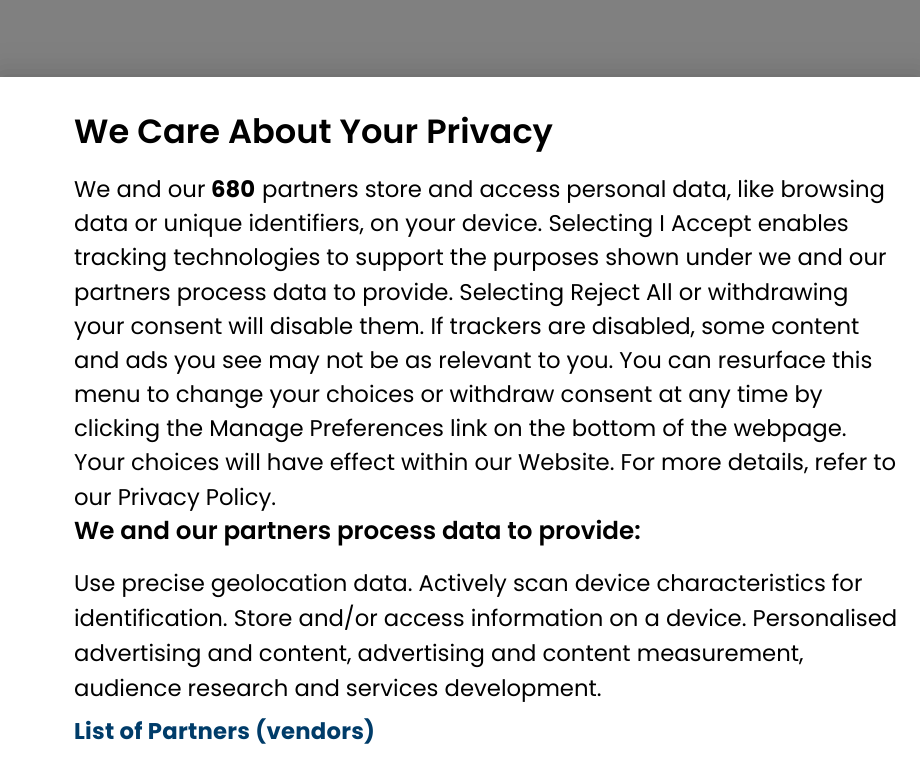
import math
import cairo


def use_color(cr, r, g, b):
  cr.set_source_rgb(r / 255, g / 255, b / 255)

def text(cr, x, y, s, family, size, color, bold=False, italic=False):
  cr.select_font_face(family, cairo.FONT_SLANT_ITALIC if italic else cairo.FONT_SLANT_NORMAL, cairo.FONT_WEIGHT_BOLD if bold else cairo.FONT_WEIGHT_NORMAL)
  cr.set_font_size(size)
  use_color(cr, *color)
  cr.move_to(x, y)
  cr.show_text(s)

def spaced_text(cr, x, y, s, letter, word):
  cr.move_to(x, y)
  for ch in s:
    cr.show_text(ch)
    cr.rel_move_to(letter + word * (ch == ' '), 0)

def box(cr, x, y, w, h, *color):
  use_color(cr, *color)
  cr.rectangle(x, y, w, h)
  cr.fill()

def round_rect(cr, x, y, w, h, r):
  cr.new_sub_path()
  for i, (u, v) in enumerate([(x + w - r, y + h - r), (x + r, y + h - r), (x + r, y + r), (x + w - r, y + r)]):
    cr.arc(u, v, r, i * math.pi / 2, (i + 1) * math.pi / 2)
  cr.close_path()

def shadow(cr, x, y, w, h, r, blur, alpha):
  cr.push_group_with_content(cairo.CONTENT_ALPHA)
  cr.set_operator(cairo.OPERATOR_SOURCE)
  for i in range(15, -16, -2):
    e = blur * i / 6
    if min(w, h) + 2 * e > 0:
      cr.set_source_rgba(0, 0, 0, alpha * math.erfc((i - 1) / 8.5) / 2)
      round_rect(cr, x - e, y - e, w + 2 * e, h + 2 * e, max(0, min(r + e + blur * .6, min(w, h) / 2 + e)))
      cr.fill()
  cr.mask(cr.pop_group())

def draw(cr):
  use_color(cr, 128, 128, 128)
  cr.paint()
  use_color(cr, 0, 0, 0)
  shadow(cr, 0, 77, 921, 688, 0, 16, 0.2)
  box(cr, 0, 77, 920, 687, 255, 255, 255)
  text(cr, 74, 143, "We Care About Your Privacy", "Poppins SemiBold", 33.6, (0, 0, 0))
  text(cr, 74, 197, "We and our", "Poppins", 22.75, (0, 0, 0))
  text(cr, 211, 197, "680", "Poppins", 22.75, (0, 0, 0), bold=True)
  text(cr, 262, 197, "partners store and access personal data, like browsing", "Poppins", 22.75, (0, 0, 0))
  text(cr, 74, 231, "data or unique identifiers, on your device. Selecting I Accept enables", "Poppins", 22.75, (0, 0, 0))
  text(cr, 74, 265, "tracking technologies to support the purposes shown under we and our", "Poppins", 22.75, (0, 0, 0))
  text(cr, 74, 300, "partners process data to provide. Selecting Reject All or withdrawing", "Poppins", 22.75, (0, 0, 0))
  text(cr, 74, 334, "your consent will disable them. If trackers are disabled, some content", "Poppins", 22.75, (0, 0, 0))
  text(cr, 74, 368, "and ads you see may not be as relevant to you. You can resurface this", "Poppins", 22.75, (0, 0, 0))
  text(cr, 74, 402, "menu to change your choices or withdraw consent at any time by", "Poppins", 22.75, (0, 0, 0))
  text(cr, 74, 436, "clicking the Manage Preferences link on the bottom of the webpage.", "Poppins", 22.75, (0, 0, 0))
  text(cr, 74, 470, "Your choices will have effect within our Website. For more details, refer to", "Poppins", 22.75, (0, 0, 0))
  text(cr, 74, 505, "our Privacy Policy.", "Poppins", 22.75, (0, 0, 0))
  text(cr, 74, 539, "We and our partners process data to provide:", "Poppins SemiBold", 24.6, (0, 0, 0))
  text(cr, 74, 591, "Use precise geolocation data. Actively scan device characteristics for", "Poppins", 22.75, (0, 0, 0))
  text(cr, 74, 626, "identification. Store and/or access information on a device. Personalised", "Poppins", 22.75, (0, 0, 0))
  text(cr, 74, 661, "advertising and content, advertising and content measurement,", "Poppins", 22.75, (0, 0, 0))
  text(cr, 74, 696, "audience research and services development.", "Poppins", 22.75, (0, 0, 0))
  cr.select_font_face("Poppins", cairo.FONT_SLANT_NORMAL, cairo.FONT_WEIGHT_BOLD)
  use_color(cr, 0, 60, 105)
  spaced_text(cr, 74, 739, "List of Partners (vendors)", 0.25, 0)


surface = cairo.ImageSurface(cairo.FORMAT_RGB24, 920, 764)
cr = cairo.Context(surface)
options = cairo.FontOptions()
options.set_hint_metrics(cairo.HINT_METRICS_OFF)
options.set_hint_style(cairo.HINT_STYLE_NONE)
cr.set_font_options(options)
cr.set_miter_limit(4)
draw(cr)
surface.write_to_png("out.png")
